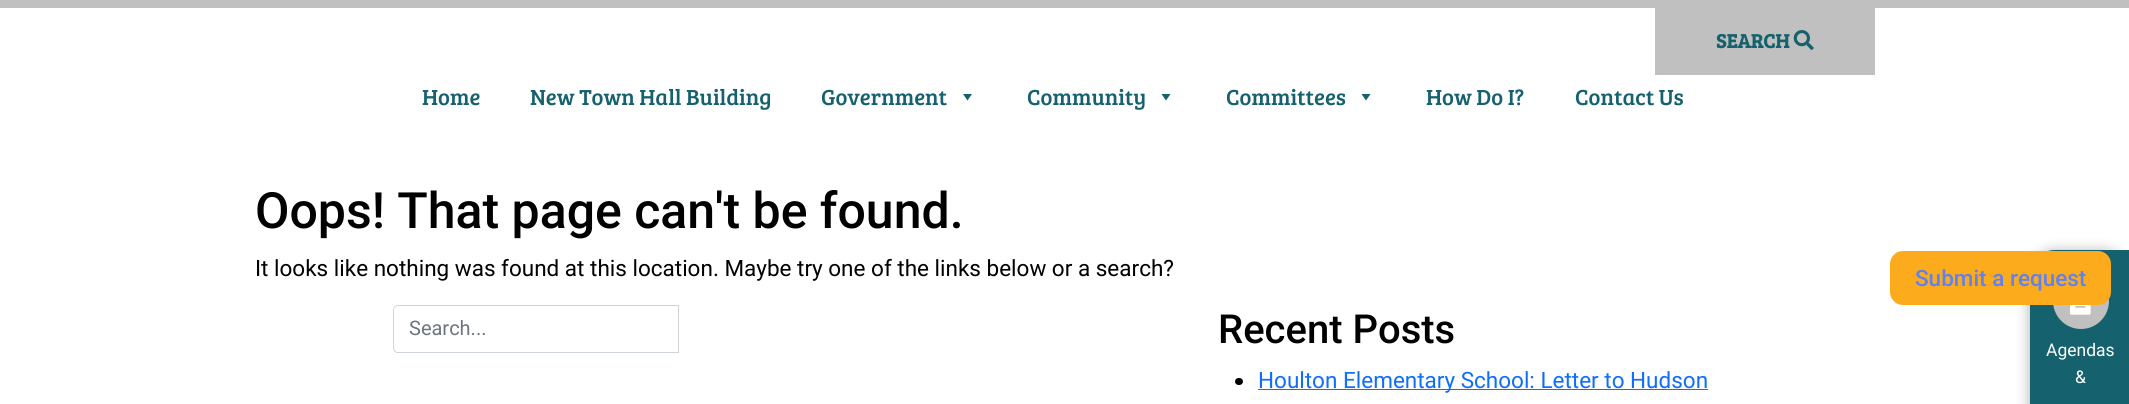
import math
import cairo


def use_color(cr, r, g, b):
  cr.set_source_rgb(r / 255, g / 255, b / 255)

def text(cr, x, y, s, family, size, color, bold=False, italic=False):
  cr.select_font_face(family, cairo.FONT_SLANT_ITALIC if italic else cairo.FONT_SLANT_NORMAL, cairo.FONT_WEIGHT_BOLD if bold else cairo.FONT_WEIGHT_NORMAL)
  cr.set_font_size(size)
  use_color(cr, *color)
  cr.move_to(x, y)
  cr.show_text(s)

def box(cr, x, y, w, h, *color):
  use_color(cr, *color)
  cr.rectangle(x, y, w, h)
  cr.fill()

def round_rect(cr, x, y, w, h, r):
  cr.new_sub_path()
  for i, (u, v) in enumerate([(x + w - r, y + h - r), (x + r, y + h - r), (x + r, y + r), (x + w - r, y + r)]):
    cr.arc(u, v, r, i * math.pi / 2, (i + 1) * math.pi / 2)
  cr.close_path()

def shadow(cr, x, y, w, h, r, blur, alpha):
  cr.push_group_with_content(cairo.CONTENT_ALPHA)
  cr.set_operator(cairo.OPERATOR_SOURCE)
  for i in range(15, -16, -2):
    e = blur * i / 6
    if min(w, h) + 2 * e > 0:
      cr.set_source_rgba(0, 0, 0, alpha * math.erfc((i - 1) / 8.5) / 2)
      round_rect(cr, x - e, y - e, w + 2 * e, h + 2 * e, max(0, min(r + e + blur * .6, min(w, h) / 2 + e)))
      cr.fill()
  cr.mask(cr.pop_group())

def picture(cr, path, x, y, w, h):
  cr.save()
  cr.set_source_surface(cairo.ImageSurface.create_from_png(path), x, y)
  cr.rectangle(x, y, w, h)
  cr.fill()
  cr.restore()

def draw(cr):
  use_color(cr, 255, 255, 255)
  cr.paint()
  box(cr, 0, 0, 2129, 8, 192, 192, 192)
  box(cr, 1655, 8, 220, 67, 192, 192, 192)
  picture(cr, "img_01.png", 1793, 30, 21, 20)
  use_color(cr, 21, 97, 109)
  cr.new_path()
  cr.move_to(972, 94)
  cr.line_to(967.5, 100.5)
  cr.line_to(963, 94)
  cr.close_path()
  cr.fill()
  cr.new_path()
  cr.move_to(1170.5, 94)
  cr.line_to(1166, 100.5)
  cr.line_to(1161.5, 94)
  cr.close_path()
  cr.fill()
  cr.new_path()
  cr.move_to(1370.5, 94)
  cr.line_to(1366, 100.5)
  cr.line_to(1361.5, 94)
  cr.close_path()
  cr.fill()
  use_color(cr, 192, 192, 192)
  shadow(cr, 2028, 250, 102, 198, 26, 6, 1)
  use_color(cr, 21, 97, 109)
  cr.new_path()
  cr.move_to(2055, 250)
  cr.line_to(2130, 250)
  cr.line_to(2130, 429)
  cr.line_to(2055, 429)
  cr.curve_to(2041, 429, 2030, 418, 2030, 404)
  cr.line_to(2030, 275)
  cr.curve_to(2030, 261, 2041, 250, 2055, 250)
  cr.close_path()
  cr.fill()
  use_color(cr, 192, 192, 192)
  cr.arc(2081, 301, 28, 0, 2 * math.pi)
  cr.fill()
  picture(cr, "img_02.png", 2070, 305, 21, 10)
  cr.new_path()
  cr.move_to(398, 305.5)
  cr.line_to(678.5, 305.5)
  cr.line_to(678.5, 352.5)
  cr.line_to(398, 352.5)
  cr.curve_to(395.5, 352.5, 393.5, 350.5, 393.5, 348)
  cr.line_to(393.5, 310)
  cr.curve_to(393.5, 307.5, 395.5, 305.5, 398, 305.5)
  cr.close_path()
  use_color(cr, 206, 212, 218)
  cr.set_line_width(1)
  cr.stroke()
  use_color(cr, 0, 0, 0)
  round_rect(cr, 1235, 378, 8, 7, 3.5)
  cr.fill()
  box(cr, 1258, 389, 450, 1, 13, 110, 253)
  use_color(cr, 252, 171, 28)
  round_rect(cr, 1890, 251, 221, 54, 13)
  cr.fill()
  text(cr, 1716, 48, "SEARCH", "Bree Serif", 20, (21, 97, 109), bold=True)
  text(cr, 422, 105, "Home", "Bree Serif", 22.5, (21, 97, 109))
  text(cr, 530, 105, "New Town Hall Building", "Bree Serif", 22.5, (21, 97, 109))
  text(cr, 821, 105, "Government", "Bree Serif", 22.5, (21, 97, 109))
  text(cr, 1027, 105, "Community", "Bree Serif", 22.5, (21, 97, 109))
  text(cr, 1226, 105, "Committees", "Bree Serif", 22.5, (21, 97, 109))
  text(cr, 1426, 105, "How Do I?", "Bree Serif", 22.5, (21, 97, 109))
  text(cr, 1575, 105, "Contact Us", "Bree Serif", 22.5, (21, 97, 109))
  text(cr, 2046, 356, "Agendas", "Roboto", 17.5, (255, 255, 255))
  text(cr, 2075, 383, "&", "Roboto", 17.5, (255, 255, 255))
  text(cr, 255, 228, "Oops! That page can't be found.", "Roboto Medium", 50, (0, 0, 0))
  text(cr, 255, 276, "It looks like nothing was found at this location. Maybe try one of the links below or a search?", "Roboto", 22.5, (0, 0, 0))
  text(cr, 409, 335, "Search...", "Roboto", 20, (108, 117, 125))
  text(cr, 1218, 343, "Recent Posts", "Roboto Medium", 40, (0, 0, 0))
  text(cr, 1258, 388, "Houlton Elementary School: Letter to Hudson", "Roboto", 22.5, (13, 110, 253))
  text(cr, 1915, 286, "Submit a request", "Roboto Medium", 22.5, (94, 129, 244))


surface = cairo.ImageSurface(cairo.FORMAT_RGB24, 2129, 404)
cr = cairo.Context(surface)
options = cairo.FontOptions()
options.set_hint_metrics(cairo.HINT_METRICS_OFF)
options.set_hint_style(cairo.HINT_STYLE_NONE)
cr.set_font_options(options)
cr.set_miter_limit(4)
draw(cr)
surface.write_to_png("out.png")
